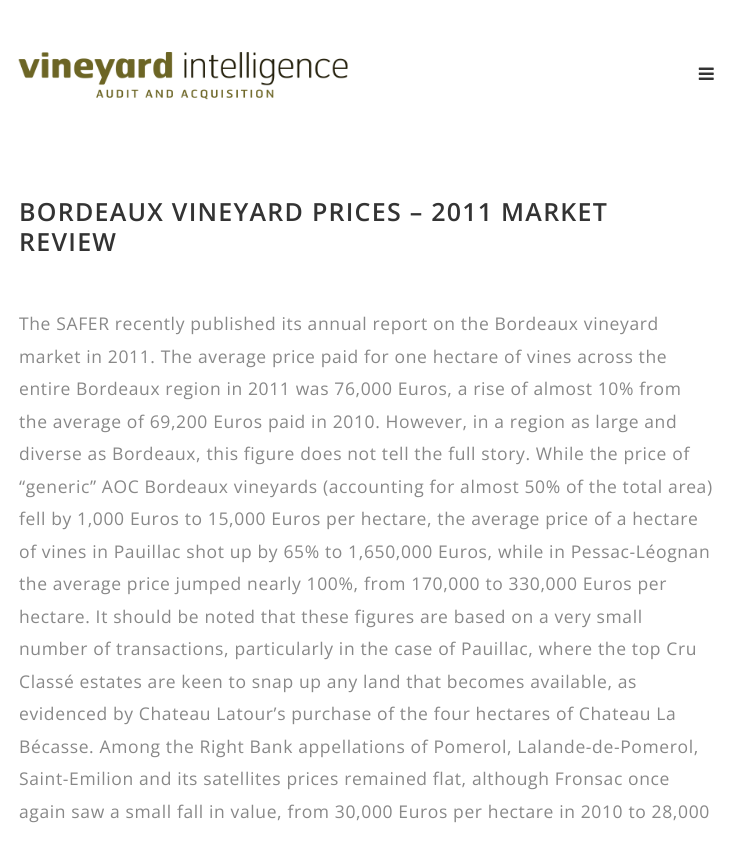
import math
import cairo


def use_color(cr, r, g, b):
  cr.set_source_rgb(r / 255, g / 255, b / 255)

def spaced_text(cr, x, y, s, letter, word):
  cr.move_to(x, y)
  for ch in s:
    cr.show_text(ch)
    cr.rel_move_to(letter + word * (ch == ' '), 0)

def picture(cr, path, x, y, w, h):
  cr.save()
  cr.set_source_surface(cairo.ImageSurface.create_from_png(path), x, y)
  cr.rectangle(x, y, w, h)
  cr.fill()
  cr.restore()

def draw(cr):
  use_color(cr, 255, 255, 255)
  cr.paint()
  picture(cr, "img_01.png", 18, 52, 330, 48)
  picture(cr, "img_02.png", 698, 67, 16, 13)
  cr.select_font_face("Open Sans SemiBold")
  cr.set_font_size(25)
  use_color(cr, 51, 51, 51)
  spaced_text(cr, 19, 221, "BORDEAUX VINEYARD PRICES – 2011 MARKET", 1.25, 0)
  spaced_text(cr, 19, 251, "REVIEW", 1.25, 0)
  cr.select_font_face("Open Sans")
  cr.set_font_size(17.5)
  use_color(cr, 136, 136, 136)
  spaced_text(cr, 19, 330, "The SAFER recently published its annual report on the Bordeaux vineyard", 0.62, 0)
  spaced_text(cr, 19, 363, "market in 2011. The average price paid for one hectare of vines across the", 0.62, 0)
  spaced_text(cr, 19, 395, "entire Bordeaux region in 2011 was 76,000 Euros, a rise of almost 10% from", 0.62, 0)
  spaced_text(cr, 19, 428, "the average of 69,200 Euros paid in 2010. However, in a region as large and", 0.62, 0)
  spaced_text(cr, 19, 460, "diverse as Bordeaux, this figure does not tell the full story. While the price of", 0.62, 0)
  spaced_text(cr, 19, 493, "“generic” AOC Bordeaux vineyards (accounting for almost 50% of the total area)", 0.62, 0)
  spaced_text(cr, 19, 525, "fell by 1,000 Euros to 15,000 Euros per hectare, the average price of a hectare", 0.62, 0)
  spaced_text(cr, 19, 558, "of vines in Pauillac shot up by 65% to 1,650,000 Euros, while in Pessac-Léognan", 0.62, 0)
  spaced_text(cr, 19, 590, "the average price jumped nearly 100%, from 170,000 to 330,000 Euros per", 0.62, 0)
  spaced_text(cr, 19, 623, "hectare. It should be noted that these figures are based on a very small", 0.62, 0)
  spaced_text(cr, 19, 655, "number of transactions, particularly in the case of Pauillac, where the top Cru", 0.62, 0)
  spaced_text(cr, 19, 688, "Classé estates are keen to snap up any land that becomes available, as", 0.62, 0)
  spaced_text(cr, 19, 720, "evidenced by Chateau Latour’s purchase of the four hectares of Chateau La", 0.62, 0)
  spaced_text(cr, 19, 753, "Bécasse. Among the Right Bank appellations of Pomerol, Lalande-de-Pomerol,", 0.62, 0)
  spaced_text(cr, 19, 785, "Saint-Emilion and its satellites prices remained flat, although Fronsac once", 0.62, 0)
  spaced_text(cr, 19, 818, "again saw a small fall in value, from 30,000 Euros per hectare in 2010 to 28,000", 0.62, 0)


surface = cairo.ImageSurface(cairo.FORMAT_RGB24, 732, 841)
cr = cairo.Context(surface)
options = cairo.FontOptions()
options.set_hint_metrics(cairo.HINT_METRICS_OFF)
options.set_hint_style(cairo.HINT_STYLE_NONE)
cr.set_font_options(options)
cr.set_miter_limit(4)
draw(cr)
surface.write_to_png("out.png")
